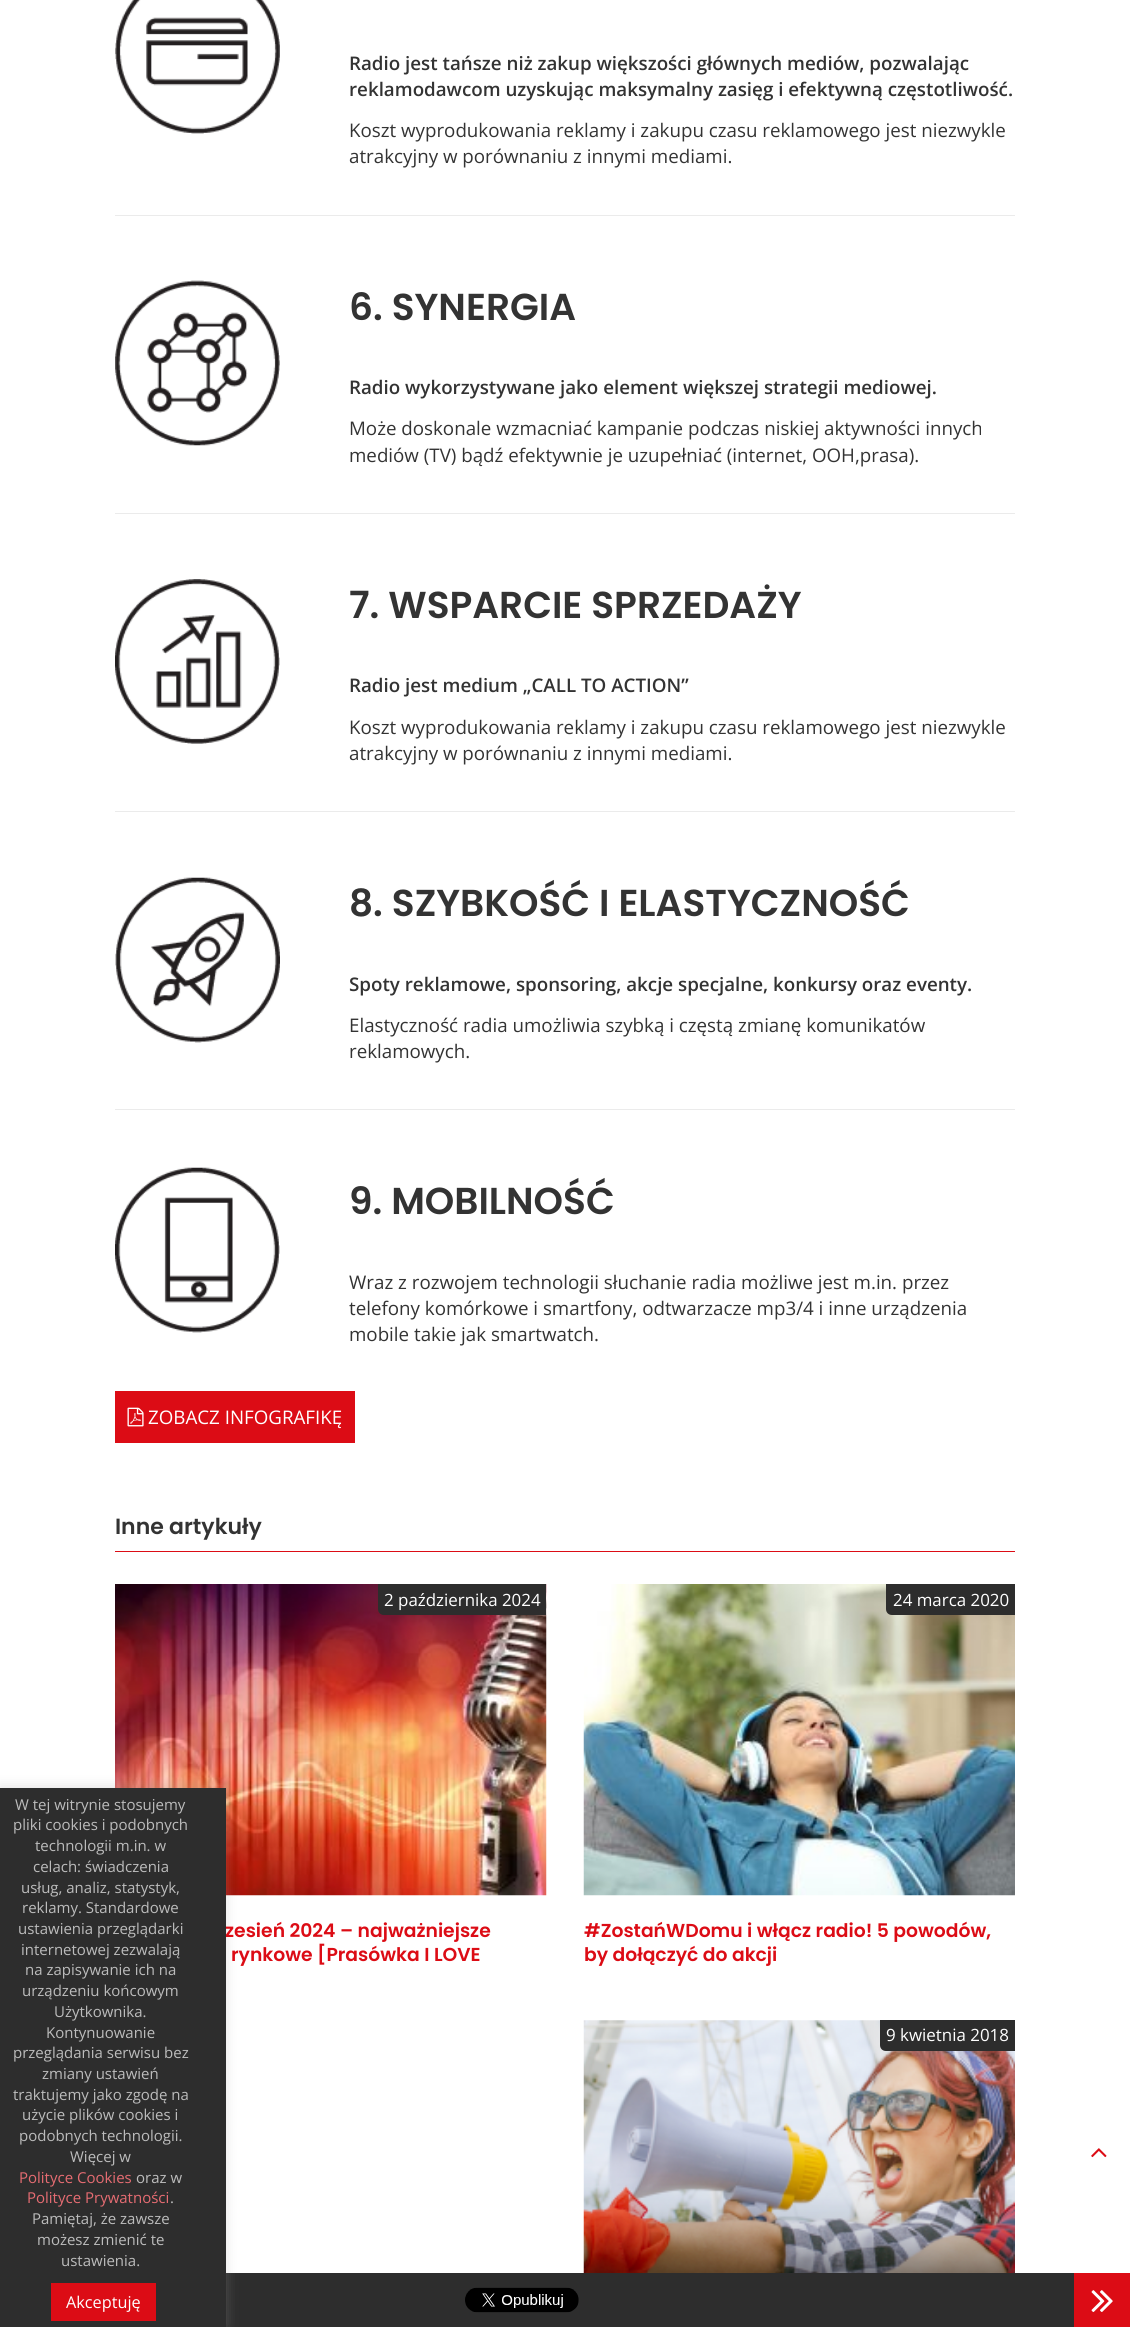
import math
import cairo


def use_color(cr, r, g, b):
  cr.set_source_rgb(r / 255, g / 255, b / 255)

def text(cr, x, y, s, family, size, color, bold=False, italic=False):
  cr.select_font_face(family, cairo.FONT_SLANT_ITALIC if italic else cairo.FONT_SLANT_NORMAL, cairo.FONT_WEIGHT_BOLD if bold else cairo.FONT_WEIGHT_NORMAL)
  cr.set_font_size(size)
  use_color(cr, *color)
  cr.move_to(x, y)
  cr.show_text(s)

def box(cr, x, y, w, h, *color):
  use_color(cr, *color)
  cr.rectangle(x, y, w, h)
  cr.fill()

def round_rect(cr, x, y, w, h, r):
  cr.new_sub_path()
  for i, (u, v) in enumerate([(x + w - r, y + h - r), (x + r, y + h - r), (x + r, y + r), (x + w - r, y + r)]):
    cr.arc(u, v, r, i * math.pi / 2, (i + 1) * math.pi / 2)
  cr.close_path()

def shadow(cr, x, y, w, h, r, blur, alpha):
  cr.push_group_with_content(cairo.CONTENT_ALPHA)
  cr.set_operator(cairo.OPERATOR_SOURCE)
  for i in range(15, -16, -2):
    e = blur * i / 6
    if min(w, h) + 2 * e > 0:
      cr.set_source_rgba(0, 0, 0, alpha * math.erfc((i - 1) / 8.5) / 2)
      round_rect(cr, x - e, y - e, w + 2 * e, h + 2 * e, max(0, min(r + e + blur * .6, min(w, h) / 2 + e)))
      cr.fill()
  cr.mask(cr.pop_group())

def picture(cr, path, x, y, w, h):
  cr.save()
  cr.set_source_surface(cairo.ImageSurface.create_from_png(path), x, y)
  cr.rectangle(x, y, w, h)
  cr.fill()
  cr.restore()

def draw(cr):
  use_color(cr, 255, 255, 255)
  cr.paint()
  picture(cr, "img_07.png", 115, 1584, 432, 312)
  box(cr, 226, 2273, 848, 54, 45, 45, 45)
  use_color(cr, 172, 171, 171)
  shadow(cr, 0, 1786, 226, 540, 0, 6, 0.3)
  picture(cr, "img_01.png", 115, 0, 165, 134)
  box(cr, 115, 215, 900, 1, 235, 235, 235)
  picture(cr, "img_02.png", 115, 280, 165, 166)
  box(cr, 115, 513, 900, 1, 235, 235, 235)
  picture(cr, "img_03.png", 115, 579, 165, 165)
  box(cr, 115, 811, 900, 1, 235, 235, 235)
  picture(cr, "img_04.png", 115, 877, 165, 166)
  box(cr, 115, 1109, 900, 1, 235, 235, 235)
  picture(cr, "img_05.png", 115, 1167, 165, 166)
  box(cr, 115, 1391, 240, 52, 220, 12, 21)
  picture(cr, "img_06.png", 127, 1407, 17, 20)
  box(cr, 115, 1551, 900, 1, 220, 12, 21)
  use_color(cr, 45, 45, 45)
  cr.new_path()
  cr.move_to(378, 1584)
  cr.line_to(546, 1584)
  cr.line_to(546, 1615)
  cr.line_to(384, 1615)
  cr.curve_to(380.5, 1615, 378, 1612.5, 378, 1609)
  cr.close_path()
  cr.fill()
  picture(cr, "img_08.png", 583, 1584, 432, 312)
  cr.new_path()
  cr.move_to(886, 1584)
  cr.line_to(1015, 1584)
  cr.line_to(1015, 1615)
  cr.line_to(892, 1615)
  cr.curve_to(888.5, 1615, 886, 1612.5, 886, 1609)
  cr.close_path()
  cr.fill()
  picture(cr, "img_09.png", 583, 2020, 432, 253)
  cr.new_path()
  cr.move_to(880, 2020)
  cr.line_to(1015, 2020)
  cr.line_to(1015, 2051)
  cr.line_to(886, 2051)
  cr.curve_to(882.5, 2051, 880, 2048.5, 880, 2045)
  cr.close_path()
  cr.fill()
  picture(cr, "img_10.png", 1091, 2148, 16, 10)
  picture(cr, "img_11.png", 465, 2287, 114, 26)
  box(cr, 1074, 2273, 56, 54, 220, 12, 21)
  picture(cr, "img_12.png", 1091, 2290, 22, 22)
  text(cr, 349, 70, "Radio jest tańsze niż zakup większości głównych mediów, pozwalając", "Open Sans SemiBold", 18.75, (51, 51, 51))
  text(cr, 349, 96, "reklamodawcom uzyskując maksymalny zasięg i efektywną częstotliwość.", "Open Sans SemiBold", 18.75, (51, 51, 51))
  text(cr, 349, 137, "Koszt wyprodukowania reklamy i zakupu czasu reklamowego jest niezwykle", "Open Sans", 18.75, (51, 51, 51))
  text(cr, 349, 163, "atrakcyjny w porównaniu z innymi mediami.", "Open Sans", 18.75, (51, 51, 51))
  text(cr, 349, 320, "6. SYNERGIA", "Poppins SemiBold", 37.5, (51, 51, 51))
  text(cr, 349, 394, "Radio wykorzystywane jako element większej strategii mediowej.", "Open Sans SemiBold", 18.75, (51, 51, 51))
  text(cr, 349, 435, "Może doskonale wzmacniać kampanie podczas niskiej aktywności innych", "Open Sans", 18.75, (51, 51, 51))
  text(cr, 349, 462, "mediów (TV) bądź efektywnie je uzupełniać (internet, OOH,prasa).", "Open Sans", 18.75, (51, 51, 51))
  text(cr, 349, 618, "7. WSPARCIE SPRZEDAŻY", "Poppins SemiBold", 37.5, (51, 51, 51))
  text(cr, 349, 692, "Radio jest medium „CALL TO ACTION”", "Open Sans SemiBold", 18.75, (51, 51, 51))
  text(cr, 349, 734, "Koszt wyprodukowania reklamy i zakupu czasu reklamowego jest niezwykle", "Open Sans", 18.75, (51, 51, 51))
  text(cr, 349, 760, "atrakcyjny w porównaniu z innymi mediami.", "Open Sans", 18.75, (51, 51, 51))
  text(cr, 349, 916, "8. SZYBKOŚĆ I ELASTYCZNOŚĆ", "Poppins SemiBold", 37.5, (51, 51, 51))
  text(cr, 349, 991, "Spoty reklamowe, sponsoring, akcje specjalne, konkursy oraz eventy.", "Open Sans SemiBold", 18.75, (51, 51, 51))
  text(cr, 349, 1032, "Elastyczność radia umożliwia szybką i częstą zmianę komunikatów", "Open Sans", 18.75, (51, 51, 51))
  text(cr, 349, 1058, "reklamowych.", "Open Sans", 18.75, (51, 51, 51))
  text(cr, 349, 1214, "9. MOBILNOŚĆ", "Poppins SemiBold", 37.5, (51, 51, 51))
  text(cr, 349, 1289, "Wraz z rozwojem technologii słuchanie radia możliwe jest m.in. przez", "Open Sans", 18.75, (51, 51, 51))
  text(cr, 349, 1315, "telefony komórkowe i smartfony, odtwarzacze mp3/4 i inne urządzenia", "Open Sans", 18.75, (51, 51, 51))
  text(cr, 349, 1341, "mobile takie jak smartwatch.", "Open Sans", 18.75, (51, 51, 51))
  text(cr, 148, 1424, "ZOBACZ INFOGRAFIKĘ", "Open Sans", 18.75, (255, 255, 255))
  text(cr, 115, 1534, "Inne artykuły", "Poppins SemiBold", 22, (51, 51, 51))
  text(cr, 384, 1606, "2 października 2024", "Open Sans", 16.9, (255, 255, 255))
  text(cr, 225, 1937, "zesień 2024 – najważniejsze", "Poppins SemiBold", 18.75, (220, 12, 21))
  box(cr, 0, 1788, 226, 539, 45, 45, 45)
  box(cr, 51, 2283, 105, 38, 220, 12, 21)
  text(cr, 66, 2308, "Akceptuję", "Open Sans", 16.25, (255, 255, 255))
  text(cr, 61, 2266, "ustawienia.", "Open Sans", 15, (188, 188, 188))
  text(cr, 37, 2245, "możesz zmienić te", "Open Sans", 15, (188, 188, 188))
  text(cr, 32, 2224, "Pamiętaj, że zawsze", "Open Sans", 15, (188, 188, 188))
  text(cr, 170, 2203, ".", "Open Sans", 15, (188, 188, 188))
  text(cr, 27, 2203, "Polityce Prywatności", "Open Sans", 15, (230, 108, 114))
  text(cr, 136, 2183, "oraz w", "Open Sans", 15, (188, 188, 188))
  text(cr, 19, 2183, "Polityce Cookies", "Open Sans", 15, (230, 108, 114))
  text(cr, 70, 2162, "Więcej w", "Open Sans", 15, (188, 188, 188))
  text(cr, 19, 2141, "podobnych technologii.", "Open Sans", 15, (188, 188, 188))
  text(cr, 22, 2120, "użycie plików cookies i", "Open Sans", 15, (188, 188, 188))
  text(cr, 13, 2100, "traktujemy jako zgodę na", "Open Sans", 15, (188, 188, 188))
  text(cr, 42, 2079, "zmiany ustawień", "Open Sans", 15, (188, 188, 188))
  text(cr, 13, 2058, "przeglądania serwisu bez", "Open Sans", 15, (188, 188, 188))
  text(cr, 46, 2038, "Kontynuowanie", "Open Sans", 15, (188, 188, 188))
  text(cr, 54, 2017, "Użytkownika.", "Open Sans", 15, (188, 188, 188))
  text(cr, 22, 1996, "urządzeniu końcowym", "Open Sans", 15, (188, 188, 188))
  text(cr, 25, 1975, "na zapisywanie ich na", "Open Sans", 15, (188, 188, 188))
  text(cr, 21, 1955, "internetowej zezwalają", "Open Sans", 15, (188, 188, 188))
  text(cr, 18, 1934, "ustawienia przeglądarki", "Open Sans", 15, (188, 188, 188))
  text(cr, 22, 1913, "reklamy. Standardowe", "Open Sans", 15, (188, 188, 188))
  text(cr, 21, 1893, "usług, analiz, statystyk,", "Open Sans", 15, (188, 188, 188))
  text(cr, 33, 1872, "celach: świadczenia", "Open Sans", 15, (188, 188, 188))
  text(cr, 35, 1851, "technologii m.in. w", "Open Sans", 15, (188, 188, 188))
  text(cr, 13, 1830, "pliki cookies i podobnych", "Open Sans", 15, (188, 188, 188))
  text(cr, 15, 1810, "W tej witrynie stosujemy", "Open Sans", 15, (188, 188, 188))
  text(cr, 231, 1961, "rynkowe [Prasówka I LOVE", "Poppins SemiBold", 18.75, (220, 12, 21))
  text(cr, 893, 1606, "24 marca 2020", "Open Sans", 16.9, (255, 255, 255))
  text(cr, 584, 1937, "#ZostańWDomu i włącz radio! 5 powodów,", "Poppins SemiBold", 18.75, (220, 12, 21))
  text(cr, 584, 1961, "by dołączyć do akcji", "Poppins SemiBold", 18.75, (220, 12, 21))
  text(cr, 886, 2041, "9 kwietnia 2018", "Open Sans", 16.9, (255, 255, 255))


surface = cairo.ImageSurface(cairo.FORMAT_RGB24, 1130, 2327)
cr = cairo.Context(surface)
options = cairo.FontOptions()
options.set_hint_metrics(cairo.HINT_METRICS_OFF)
options.set_hint_style(cairo.HINT_STYLE_NONE)
cr.set_font_options(options)
cr.set_miter_limit(4)
draw(cr)
surface.write_to_png("out.png")
